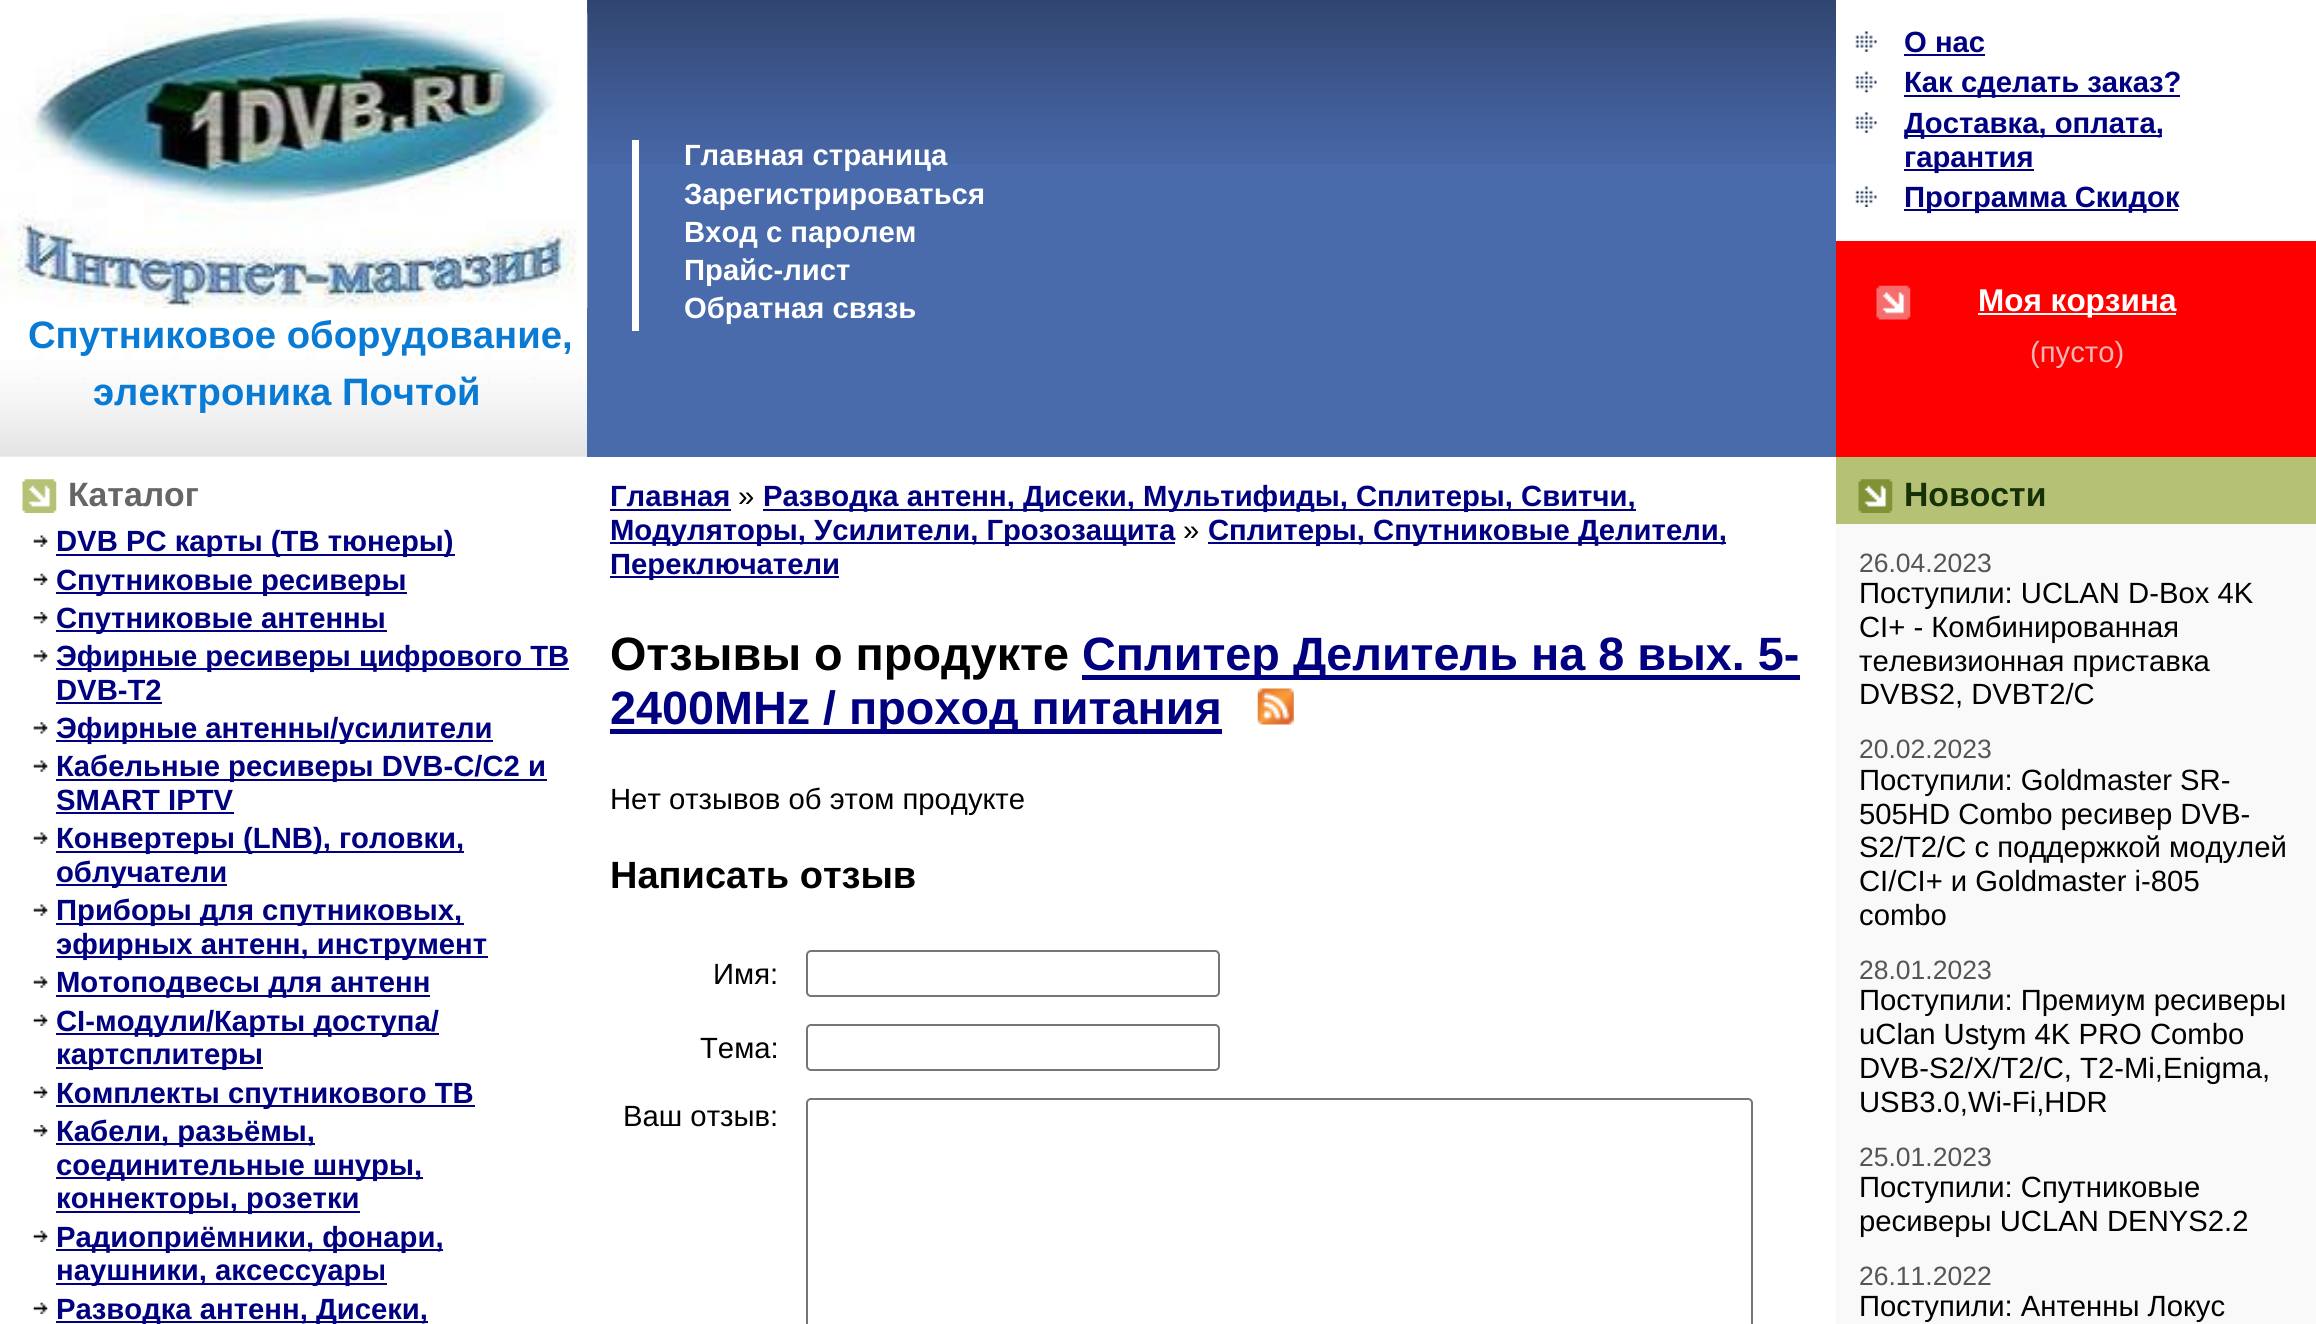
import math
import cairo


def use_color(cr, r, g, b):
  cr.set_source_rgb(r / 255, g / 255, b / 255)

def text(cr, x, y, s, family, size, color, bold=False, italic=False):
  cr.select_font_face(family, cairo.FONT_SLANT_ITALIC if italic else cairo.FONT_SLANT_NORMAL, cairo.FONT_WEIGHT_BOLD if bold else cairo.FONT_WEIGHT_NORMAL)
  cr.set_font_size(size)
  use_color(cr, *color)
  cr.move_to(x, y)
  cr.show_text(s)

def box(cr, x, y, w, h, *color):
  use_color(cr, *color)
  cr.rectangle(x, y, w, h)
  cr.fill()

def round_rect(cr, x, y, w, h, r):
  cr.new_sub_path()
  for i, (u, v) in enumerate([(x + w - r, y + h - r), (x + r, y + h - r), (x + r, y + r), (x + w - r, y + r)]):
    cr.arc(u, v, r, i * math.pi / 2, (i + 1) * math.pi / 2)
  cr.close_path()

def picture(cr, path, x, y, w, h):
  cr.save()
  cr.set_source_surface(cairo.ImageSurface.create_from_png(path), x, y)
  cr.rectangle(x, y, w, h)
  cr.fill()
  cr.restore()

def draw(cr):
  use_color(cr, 255, 255, 255)
  cr.paint()
  box(cr, 587, 0, 1249, 457, 73, 107, 171)
  picture(cr, "img_01.png", 587, 0, 1249, 164)
  box(cr, 632, 140, 7, 191, 255, 255, 255)
  picture(cr, "img_02.png", 1855, 31, 22, 21)
  box(cr, 1904, 54, 81, 2, 0, 0, 128)
  picture(cr, "img_03.png", 1855, 71, 22, 22)
  box(cr, 1904, 95, 276, 2, 0, 0, 128)
  picture(cr, "img_02.png", 1855, 112, 22, 21)
  box(cr, 1904, 135, 258, 2, 0, 0, 128)
  box(cr, 1904, 169, 130, 2, 0, 0, 128)
  picture(cr, "img_04.png", 1855, 186, 22, 21)
  box(cr, 1904, 209, 274, 2, 0, 0, 128)
  box(cr, 1836, 241, 480, 216, 255, 0, 0)
  picture(cr, "img_05.png", 1876, 285, 35, 35)
  box(cr, 1978, 313, 198, 2, 255, 255, 255)
  picture(cr, "img_06.png", 0, 346, 587, 111)
  picture(cr, "img_07.png", 0, 13, 588, 296)
  picture(cr, "img_08.png", 22, 479, 35, 34)
  picture(cr, "img_09.png", 33, 535, 15, 12)
  box(cr, 56, 554, 399, 2, 0, 0, 128)
  picture(cr, "img_10.png", 33, 573, 15, 12)
  box(cr, 56, 592, 351, 2, 0, 0, 128)
  picture(cr, "img_11.png", 33, 612, 15, 12)
  box(cr, 56, 630, 331, 2, 0, 0, 128)
  picture(cr, "img_12.png", 33, 650, 15, 12)
  box(cr, 56, 668, 513, 2, 0, 0, 128)
  box(cr, 56, 702, 106, 2, 0, 0, 128)
  picture(cr, "img_12.png", 33, 722, 15, 12)
  box(cr, 56, 740, 437, 2, 0, 0, 128)
  picture(cr, "img_09.png", 33, 760, 15, 12)
  box(cr, 56, 779, 491, 2, 0, 0, 128)
  box(cr, 56, 812, 178, 2, 0, 0, 128)
  picture(cr, "img_13.png", 33, 832, 15, 12)
  box(cr, 56, 851, 408, 2, 0, 0, 128)
  box(cr, 56, 884, 171, 2, 0, 0, 128)
  picture(cr, "img_09.png", 33, 904, 15, 12)
  box(cr, 56, 923, 408, 2, 0, 0, 128)
  box(cr, 56, 956, 432, 2, 0, 0, 128)
  picture(cr, "img_09.png", 33, 976, 15, 12)
  box(cr, 56, 995, 374, 2, 0, 0, 128)
  picture(cr, "img_14.png", 33, 1014, 15, 12)
  box(cr, 56, 1033, 383, 2, 0, 0, 128)
  box(cr, 56, 1067, 207, 2, 0, 0, 128)
  picture(cr, "img_14.png", 33, 1086, 15, 12)
  box(cr, 56, 1105, 419, 2, 0, 0, 128)
  picture(cr, "img_11.png", 33, 1125, 15, 12)
  box(cr, 56, 1143, 259, 2, 0, 0, 128)
  box(cr, 56, 1177, 367, 2, 0, 0, 128)
  box(cr, 56, 1211, 304, 2, 0, 0, 128)
  picture(cr, "img_14.png", 33, 1230, 15, 12)
  box(cr, 56, 1249, 387, 2, 0, 0, 128)
  box(cr, 56, 1283, 331, 2, 0, 0, 128)
  picture(cr, "img_14.png", 33, 1302, 15, 12)
  box(cr, 56, 1321, 372, 2, 0, 0, 128)
  box(cr, 610, 509, 121, 2, 0, 0, 128)
  box(cr, 763, 509, 873, 2, 0, 0, 128)
  box(cr, 610, 542, 565, 2, 0, 0, 128)
  box(cr, 1208, 542, 518, 2, 0, 0, 128)
  box(cr, 610, 576, 229, 2, 0, 0, 128)
  box(cr, 1082, 675, 718, 5, 0, 0, 128)
  box(cr, 610, 729, 612, 5, 0, 0, 128)
  picture(cr, "img_15.png", 1257, 688, 37, 37)
  round_rect(cr, 807, 951, 412, 45, 4)
  use_color(cr, 118, 118, 118)
  cr.stroke()
  round_rect(cr, 807, 1025, 412, 45, 4)
  cr.stroke()
  round_rect(cr, 807, 1099, 945, 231, 4)
  cr.stroke()
  box(cr, 1836, 457, 480, 67, 181, 193, 117)
  picture(cr, "img_16.png", 1858, 479, 35, 34)
  box(cr, 1836, 524, 480, 800, 249, 249, 249)
  text(cr, 684, 165, "Главная страница", "Liberation Sans", 29.25, (255, 255, 255), bold=True)
  text(cr, 684, 204, "Зарегистрироваться", "Liberation Sans", 29.25, (255, 255, 255), bold=True)
  text(cr, 684, 242, "Вход с паролем", "Liberation Sans", 29.25, (255, 255, 255), bold=True)
  text(cr, 684, 280, "Прайс-лист", "Liberation Sans", 29.25, (255, 255, 255), bold=True)
  text(cr, 684, 318, "Обратная связь", "Liberation Sans", 29.25, (255, 255, 255), bold=True)
  text(cr, 1904, 52, "О нас", "Liberation Sans", 29.25, (0, 0, 128), bold=True)
  text(cr, 1904, 92, "Как сделать заказ?", "Liberation Sans", 29.25, (0, 0, 128), bold=True)
  text(cr, 1904, 133, "Доставка, оплата,", "Liberation Sans", 29.25, (0, 0, 128), bold=True)
  text(cr, 1904, 167, "гарантия", "Liberation Sans", 29.25, (0, 0, 128), bold=True)
  text(cr, 1904, 207, "Программа Cкидок", "Liberation Sans", 29.25, (0, 0, 128), bold=True)
  text(cr, 1978, 311, "Моя корзина", "Liberation Sans", 31.5, (255, 255, 255), bold=True)
  text(cr, 2030, 362, "(пусто)", "Liberation Sans", 29.25, (240, 181, 181))
  text(cr, 28, 348, "Спутниковое оборудование,", "Liberation Sans", 38.25, (9, 123, 212), bold=True)
  text(cr, 93, 405, "электроника Почтой", "Liberation Sans", 38.25, (9, 123, 212), bold=True)
  text(cr, 68, 506, "Каталог", "Liberation Sans", 33.75, (102, 102, 102), bold=True)
  text(cr, 56, 551, "DVB PC карты (ТВ тюнеры)", "Liberation Sans", 29.25, (0, 0, 128), bold=True)
  text(cr, 56, 590, "Спутниковые ресиверы", "Liberation Sans", 29.25, (0, 0, 128), bold=True)
  text(cr, 56, 628, "Спутниковые антенны", "Liberation Sans", 29.25, (0, 0, 128), bold=True)
  text(cr, 56, 666, "Эфирные ресиверы цифрового ТВ", "Liberation Sans", 29.25, (0, 0, 128), bold=True)
  text(cr, 56, 700, "DVB-T2", "Liberation Sans", 29.25, (0, 0, 128), bold=True)
  text(cr, 56, 738, "Эфирные антенны/усилители", "Liberation Sans", 29.25, (0, 0, 128), bold=True)
  text(cr, 56, 776, "Кабельные ресиверы DVB-C/C2 и", "Liberation Sans", 29.25, (0, 0, 128), bold=True)
  text(cr, 56, 810, "SMART IPTV", "Liberation Sans", 29.25, (0, 0, 128), bold=True)
  text(cr, 56, 848, "Конвертеры (LNB), головки,", "Liberation Sans", 29.25, (0, 0, 128), bold=True)
  text(cr, 56, 882, "облучатели", "Liberation Sans", 29.25, (0, 0, 128), bold=True)
  text(cr, 56, 920, "Приборы для спутниковых,", "Liberation Sans", 29.25, (0, 0, 128), bold=True)
  text(cr, 56, 954, "эфирных антенн, инструмент", "Liberation Sans", 29.25, (0, 0, 128), bold=True)
  text(cr, 56, 992, "Мотоподвесы для антенн", "Liberation Sans", 29.25, (0, 0, 128), bold=True)
  text(cr, 56, 1031, "CI-модули/Карты доступа/", "Liberation Sans", 29.25, (0, 0, 128), bold=True)
  text(cr, 56, 1064, "картсплитеры", "Liberation Sans", 29.25, (0, 0, 128), bold=True)
  text(cr, 56, 1103, "Комплекты спутникового ТВ", "Liberation Sans", 29.25, (0, 0, 128), bold=True)
  text(cr, 56, 1141, "Кабели, разьёмы,", "Liberation Sans", 29.25, (0, 0, 128), bold=True)
  text(cr, 56, 1175, "соединительные шнуры,", "Liberation Sans", 29.25, (0, 0, 128), bold=True)
  text(cr, 56, 1208, "коннекторы, розетки", "Liberation Sans", 29.25, (0, 0, 128), bold=True)
  text(cr, 56, 1247, "Радиоприёмники, фонари,", "Liberation Sans", 29.25, (0, 0, 128), bold=True)
  text(cr, 56, 1280, "наушники, аксессуары", "Liberation Sans", 29.25, (0, 0, 128), bold=True)
  text(cr, 56, 1319, "Разводка антенн, Дисеки,", "Liberation Sans", 29.25, (0, 0, 128), bold=True)
  text(cr, 610, 506, "Главная", "Liberation Sans", 29.25, (0, 0, 128), bold=True)
  text(cr, 738, 506, "»", "Liberation Sans", 29.25, (0, 0, 0))
  text(cr, 763, 506, "Разводка антенн, Дисеки, Мультифиды, Сплитеры, Свитчи,", "Liberation Sans", 29.25, (0, 0, 128), bold=True)
  text(cr, 610, 540, "Модуляторы, Усилители, Грозозащита", "Liberation Sans", 29.25, (0, 0, 128), bold=True)
  text(cr, 1183, 540, "»", "Liberation Sans", 29.25, (0, 0, 0))
  text(cr, 1208, 540, "Сплитеры, Спутниковые Делители,", "Liberation Sans", 29.25, (0, 0, 128), bold=True)
  text(cr, 610, 574, "Переключатели", "Liberation Sans", 29.25, (0, 0, 128), bold=True)
  text(cr, 610, 670, "Отзывы о продукте", "Liberation Sans", 46.75, (0, 0, 0), bold=True)
  text(cr, 1082, 670, "Сплитер Делитель на 8 вых. 5-", "Liberation Sans", 46.75, (0, 0, 128), bold=True)
  text(cr, 610, 724, "2400MHz / проход питания", "Liberation Sans", 46.75, (0, 0, 128), bold=True)
  text(cr, 610, 809, "Нет отзывов об этом продукте", "Liberation Sans", 29.25, (0, 0, 0))
  text(cr, 610, 888, "Написать отзыв", "Liberation Sans", 38, (0, 0, 0), bold=True)
  text(cr, 713, 984, "Имя:", "Liberation Sans", 29.25, (0, 0, 0))
  text(cr, 700, 1058, "Тема:", "Liberation Sans", 29.25, (0, 0, 0))
  text(cr, 623, 1126, "Ваш отзыв:", "Liberation Sans", 29.25, (0, 0, 0))
  text(cr, 1904, 506, "Новости", "Liberation Sans", 33.75, (22, 49, 6), bold=True)
  text(cr, 1859, 572, "26.04.2023", "Liberation Sans", 26.5, (85, 85, 85))
  text(cr, 1859, 603, "Поступили: UCLAN D-Box 4K", "Liberation Sans", 29.25, (0, 0, 0))
  text(cr, 1859, 637, "CI+ - Комбинированная", "Liberation Sans", 29.25, (0, 0, 0))
  text(cr, 1859, 671, "телевизионная приставка", "Liberation Sans", 29.25, (0, 0, 0))
  text(cr, 1859, 704, "DVBS2, DVBT2/C", "Liberation Sans", 29.25, (0, 0, 0))
  text(cr, 1859, 758, "20.02.2023", "Liberation Sans", 26.5, (85, 85, 85))
  text(cr, 1859, 790, "Поступили: Goldmaster SR-", "Liberation Sans", 29.25, (0, 0, 0))
  text(cr, 1859, 824, "505HD Combo ресивер DVB-", "Liberation Sans", 29.25, (0, 0, 0))
  text(cr, 1859, 857, "S2/T2/C с поддержкой модулей", "Liberation Sans", 29.25, (0, 0, 0))
  text(cr, 1859, 891, "CI/CI+ и Goldmaster i-805", "Liberation Sans", 29.25, (0, 0, 0))
  text(cr, 1859, 925, "combo", "Liberation Sans", 29.25, (0, 0, 0))
  text(cr, 1859, 979, "28.01.2023", "Liberation Sans", 26.5, (85, 85, 85))
  text(cr, 1859, 1010, "Поступили: Премиум ресиверы", "Liberation Sans", 29.25, (0, 0, 0))
  text(cr, 1859, 1044, "uClan Ustym 4K PRO Combo", "Liberation Sans", 29.25, (0, 0, 0))
  text(cr, 1859, 1078, "DVB-S2/X/T2/C, T2-Mi,Enigma,", "Liberation Sans", 29.25, (0, 0, 0))
  text(cr, 1859, 1112, "USB3.0,Wi-Fi,HDR", "Liberation Sans", 29.25, (0, 0, 0))
  text(cr, 1859, 1166, "25.01.2023", "Liberation Sans", 26.5, (85, 85, 85))
  text(cr, 1859, 1197, "Поступили: Спутниковые", "Liberation Sans", 29.25, (0, 0, 0))
  text(cr, 1859, 1231, "ресиверы UCLAN DENYS2.2", "Liberation Sans", 29.25, (0, 0, 0))
  text(cr, 1859, 1285, "26.11.2022", "Liberation Sans", 26.5, (85, 85, 85))
  text(cr, 1859, 1316, "Поступили: Антенны Локус", "Liberation Sans", 29.25, (0, 0, 0))


surface = cairo.ImageSurface(cairo.FORMAT_RGB24, 2316, 1324)
cr = cairo.Context(surface)
options = cairo.FontOptions()
options.set_hint_metrics(cairo.HINT_METRICS_OFF)
options.set_hint_style(cairo.HINT_STYLE_NONE)
cr.set_font_options(options)
cr.set_miter_limit(4)
draw(cr)
surface.write_to_png("out.png")
